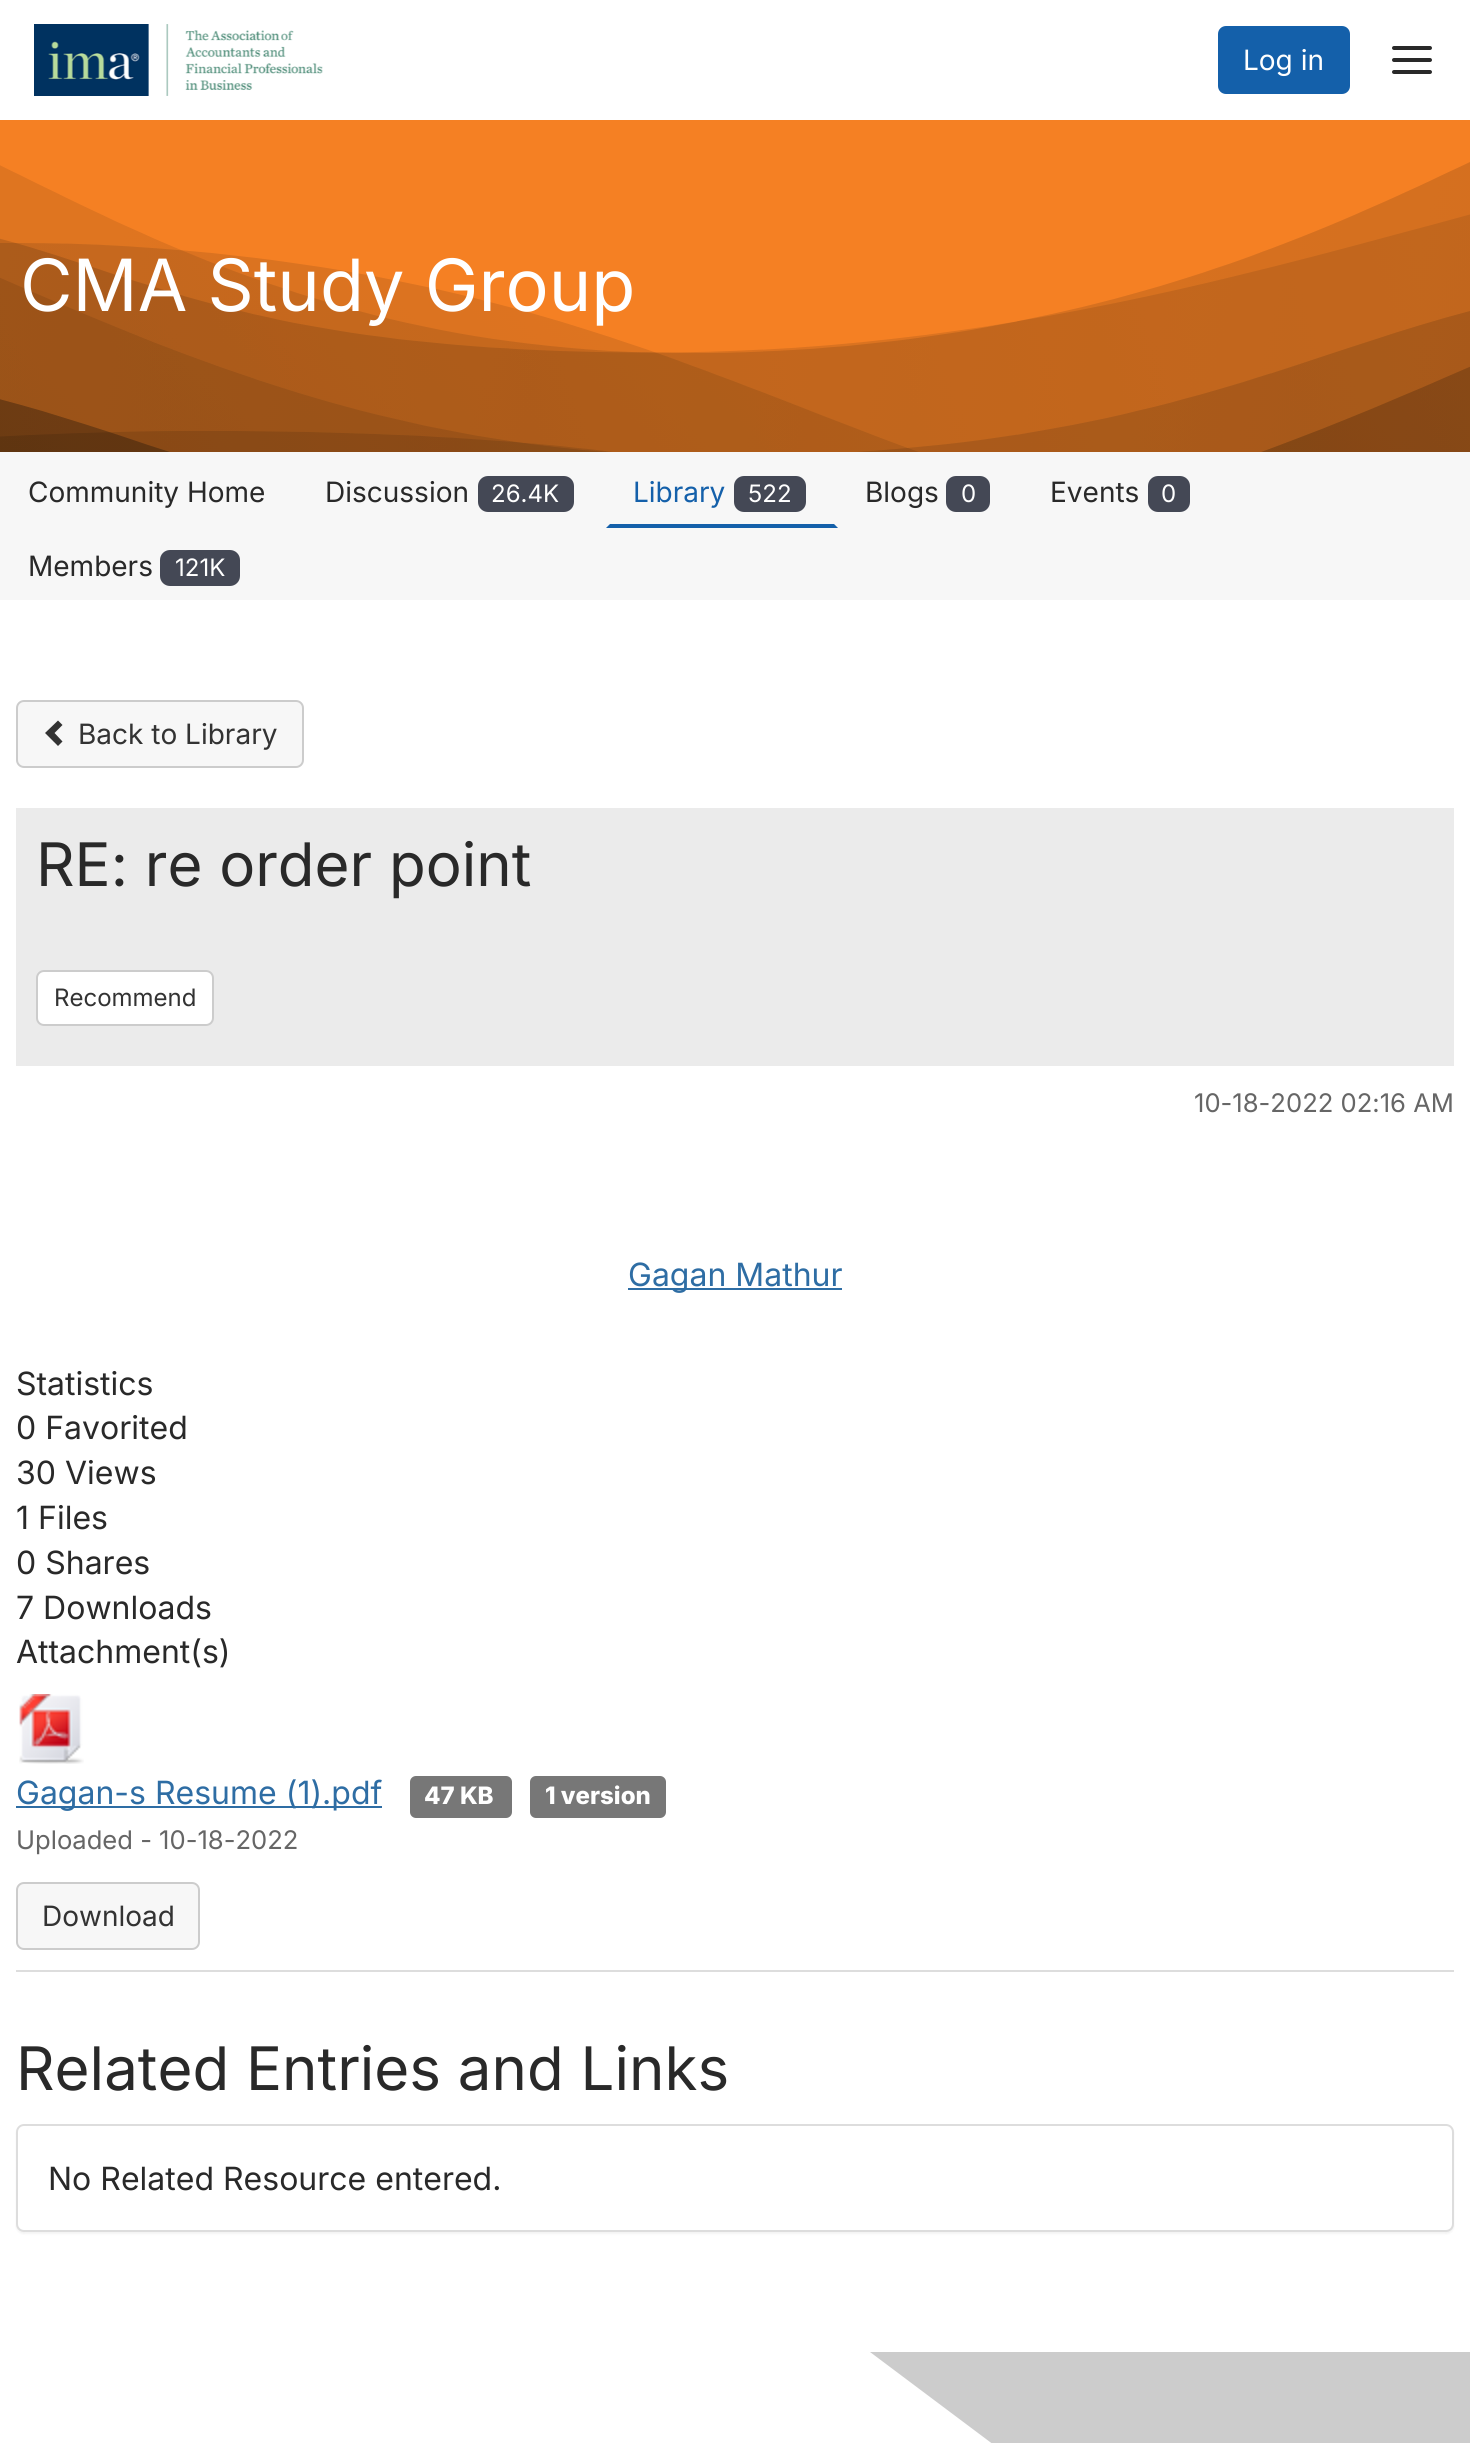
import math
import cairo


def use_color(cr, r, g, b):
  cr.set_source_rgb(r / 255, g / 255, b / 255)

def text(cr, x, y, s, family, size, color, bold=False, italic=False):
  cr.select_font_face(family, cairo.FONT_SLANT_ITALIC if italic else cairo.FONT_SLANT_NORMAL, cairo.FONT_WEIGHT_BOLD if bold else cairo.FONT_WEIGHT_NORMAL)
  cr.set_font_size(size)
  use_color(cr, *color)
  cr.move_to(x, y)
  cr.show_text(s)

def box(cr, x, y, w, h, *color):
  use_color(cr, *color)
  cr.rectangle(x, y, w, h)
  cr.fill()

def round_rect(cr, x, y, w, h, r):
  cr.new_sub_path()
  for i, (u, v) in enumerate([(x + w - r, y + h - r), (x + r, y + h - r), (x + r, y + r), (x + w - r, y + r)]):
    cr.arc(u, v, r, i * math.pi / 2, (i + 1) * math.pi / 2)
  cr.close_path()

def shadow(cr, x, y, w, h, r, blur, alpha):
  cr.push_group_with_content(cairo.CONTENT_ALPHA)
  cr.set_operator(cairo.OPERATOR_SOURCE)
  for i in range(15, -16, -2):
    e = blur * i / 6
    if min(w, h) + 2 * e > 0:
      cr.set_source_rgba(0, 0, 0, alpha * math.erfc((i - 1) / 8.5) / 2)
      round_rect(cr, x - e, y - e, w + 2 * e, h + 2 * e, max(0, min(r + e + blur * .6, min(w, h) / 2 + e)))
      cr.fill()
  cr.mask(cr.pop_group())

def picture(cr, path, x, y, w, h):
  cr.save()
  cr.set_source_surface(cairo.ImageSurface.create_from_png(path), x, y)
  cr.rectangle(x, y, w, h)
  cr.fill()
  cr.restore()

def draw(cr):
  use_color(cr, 255, 255, 255)
  cr.paint()
  picture(cr, "img_01.png", 34, 24, 289, 72)
  use_color(cr, 20, 96, 170)
  round_rect(cr, 1219, 27, 130, 66, 7)
  cr.fill_preserve()
  cr.stroke()
  use_color(cr, 41, 41, 41)
  round_rect(cr, 1392, 46, 40, 4, 2)
  cr.fill()
  round_rect(cr, 1392, 58, 40, 4, 2)
  cr.fill()
  round_rect(cr, 1392, 70, 40, 4, 2)
  cr.fill()
  picture(cr, "img_02.png", 0, 120, 1470, 332)
  box(cr, 0, 452, 1470, 148, 247, 247, 247)
  use_color(cr, 68, 72, 85)
  round_rect(cr, 478, 476, 96, 36, 10)
  cr.fill()
  use_color(cr, 20, 96, 170)
  cr.new_path()
  cr.move_to(838, 528)
  cr.line_to(606, 528)
  cr.line_to(610, 524)
  cr.line_to(834, 524)
  cr.close_path()
  cr.fill()
  use_color(cr, 68, 72, 85)
  round_rect(cr, 734, 476, 72, 36, 10)
  cr.fill()
  round_rect(cr, 946, 476, 44, 36, 10)
  cr.fill()
  round_rect(cr, 1148, 476, 42, 36, 10)
  cr.fill()
  round_rect(cr, 160, 550, 80, 36, 10)
  cr.fill()
  use_color(cr, 247, 247, 247)
  round_rect(cr, 17, 701, 286, 66, 7)
  cr.fill_preserve()
  use_color(cr, 204, 204, 204)
  cr.stroke()
  use_color(cr, 51, 51, 51)
  cr.new_path()
  cr.move_to(62.5, 725)
  cr.line_to(54.5, 733)
  cr.line_to(62.5, 741.5)
  cr.line_to(58, 746)
  cr.line_to(45, 733)
  cr.line_to(58, 720.5)
  cr.close_path()
  cr.fill()
  box(cr, 16, 808, 1438, 258, 235, 235, 235)
  use_color(cr, 255, 255, 255)
  round_rect(cr, 37, 971, 176, 54, 7)
  cr.fill_preserve()
  use_color(cr, 204, 204, 204)
  cr.stroke()
  box(cr, 628, 1288, 214, 2, 46, 109, 164)
  box(cr, 16, 1970, 1438, 2, 221, 221, 221)
  picture(cr, "img_03.png", 19, 1694, 65, 70)
  box(cr, 16, 1806, 366, 2, 46, 109, 164)
  use_color(cr, 119, 119, 119)
  round_rect(cr, 410, 1776, 102, 42, 6)
  cr.fill()
  round_rect(cr, 530, 1776, 136, 42, 6)
  cr.fill()
  use_color(cr, 247, 247, 247)
  round_rect(cr, 17, 1883, 182, 66, 7)
  cr.fill_preserve()
  use_color(cr, 204, 204, 204)
  cr.stroke()
  use_color(cr, 0, 0, 0)
  shadow(cr, 16, 2126, 1438, 108, 8, 1, 0.05)
  use_color(cr, 255, 255, 255)
  round_rect(cr, 17, 2125, 1436, 106, 7)
  cr.fill_preserve()
  use_color(cr, 221, 221, 221)
  cr.stroke()
  use_color(cr, 204, 204, 204)
  cr.new_path()
  cr.move_to(1470, 2352)
  cr.line_to(1470, 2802)
  cr.line_to(870, 2352)
  cr.close_path()
  cr.fill()
  text(cr, 1243, 70, "Log in", "Inter", 28, (255, 255, 255))
  text(cr, 20, 311, "CMA Study Group", "Inter", 72, (255, 255, 255))
  text(cr, 28, 502, "Community Home", "Inter", 28, (41, 41, 41))
  text(cr, 325, 502, "Discussion", "Inter", 28, (41, 41, 41))
  text(cr, 491, 502, "26.4K", "Inter", 24, (255, 255, 255))
  text(cr, 633, 502, "Library", "Inter", 28, (20, 96, 170))
  text(cr, 748, 502, "522", "Inter", 24, (255, 255, 255))
  text(cr, 865, 502, "Blogs", "Inter", 28, (41, 41, 41))
  text(cr, 961, 502, "0", "Inter", 24, (255, 255, 255))
  text(cr, 1050, 502, "Events", "Inter", 28, (41, 41, 41))
  text(cr, 1161, 502, "0", "Inter", 24, (255, 255, 255))
  text(cr, 28, 576, "Members", "Inter", 28, (41, 41, 41))
  text(cr, 175, 576, "121K", "Inter", 24, (255, 255, 255))
  text(cr, 78, 744, "Back to Library", "Inter", 28, (51, 51, 51))
  text(cr, 36, 886, "RE: re order point", "Inter", 60, (41, 41, 41))
  text(cr, 54, 1006, "Recommend", "Inter", 24, (51, 51, 51))
  text(cr, 1194, 1112, "10-18-2022 02:16 AM", "Inter", 25.6, (102, 102, 102))
  text(cr, 628, 1286, "Gagan Mathur", "Inter", 32, (46, 109, 164))
  text(cr, 16, 1395, "Statistics", "Inter", 32, (41, 41, 41))
  text(cr, 16, 1439, "0 Favorited", "Inter", 32, (41, 41, 41))
  text(cr, 16, 1484, "30 Views", "Inter", 32, (41, 41, 41))
  text(cr, 16, 1529, "1 Files", "Inter", 32, (41, 41, 41))
  text(cr, 16, 1574, "0 Shares", "Inter", 32, (41, 41, 41))
  text(cr, 16, 1619, "7 Downloads", "Inter", 32, (41, 41, 41))
  text(cr, 16, 1663, "Attachment(s)", "Inter", 32, (41, 41, 41))
  text(cr, 16, 1804, "Gagan-s Resume (1).pdf", "Inter", 32, (46, 109, 164))
  text(cr, 424, 1804, "47 KB", "Inter ExtraBold", 24, (255, 255, 255))
  text(cr, 545, 1804, "1 version", "Inter ExtraBold", 24, (255, 255, 255))
  text(cr, 16, 1849, "Uploaded - 10-18-2022", "Inter", 25.6, (102, 102, 102))
  text(cr, 42, 1926, "Download", "Inter", 28, (51, 51, 51))
  text(cr, 16, 2090, "Related Entries and Links", "Inter", 60, (41, 41, 41))
  text(cr, 48, 2190, "No Related Resource entered.", "Inter", 32, (41, 41, 41))


surface = cairo.ImageSurface(cairo.FORMAT_RGB24, 1470, 2443)
cr = cairo.Context(surface)
options = cairo.FontOptions()
options.set_hint_metrics(cairo.HINT_METRICS_OFF)
options.set_hint_style(cairo.HINT_STYLE_NONE)
cr.set_font_options(options)
cr.set_miter_limit(4)
draw(cr)
surface.write_to_png("out.png")
